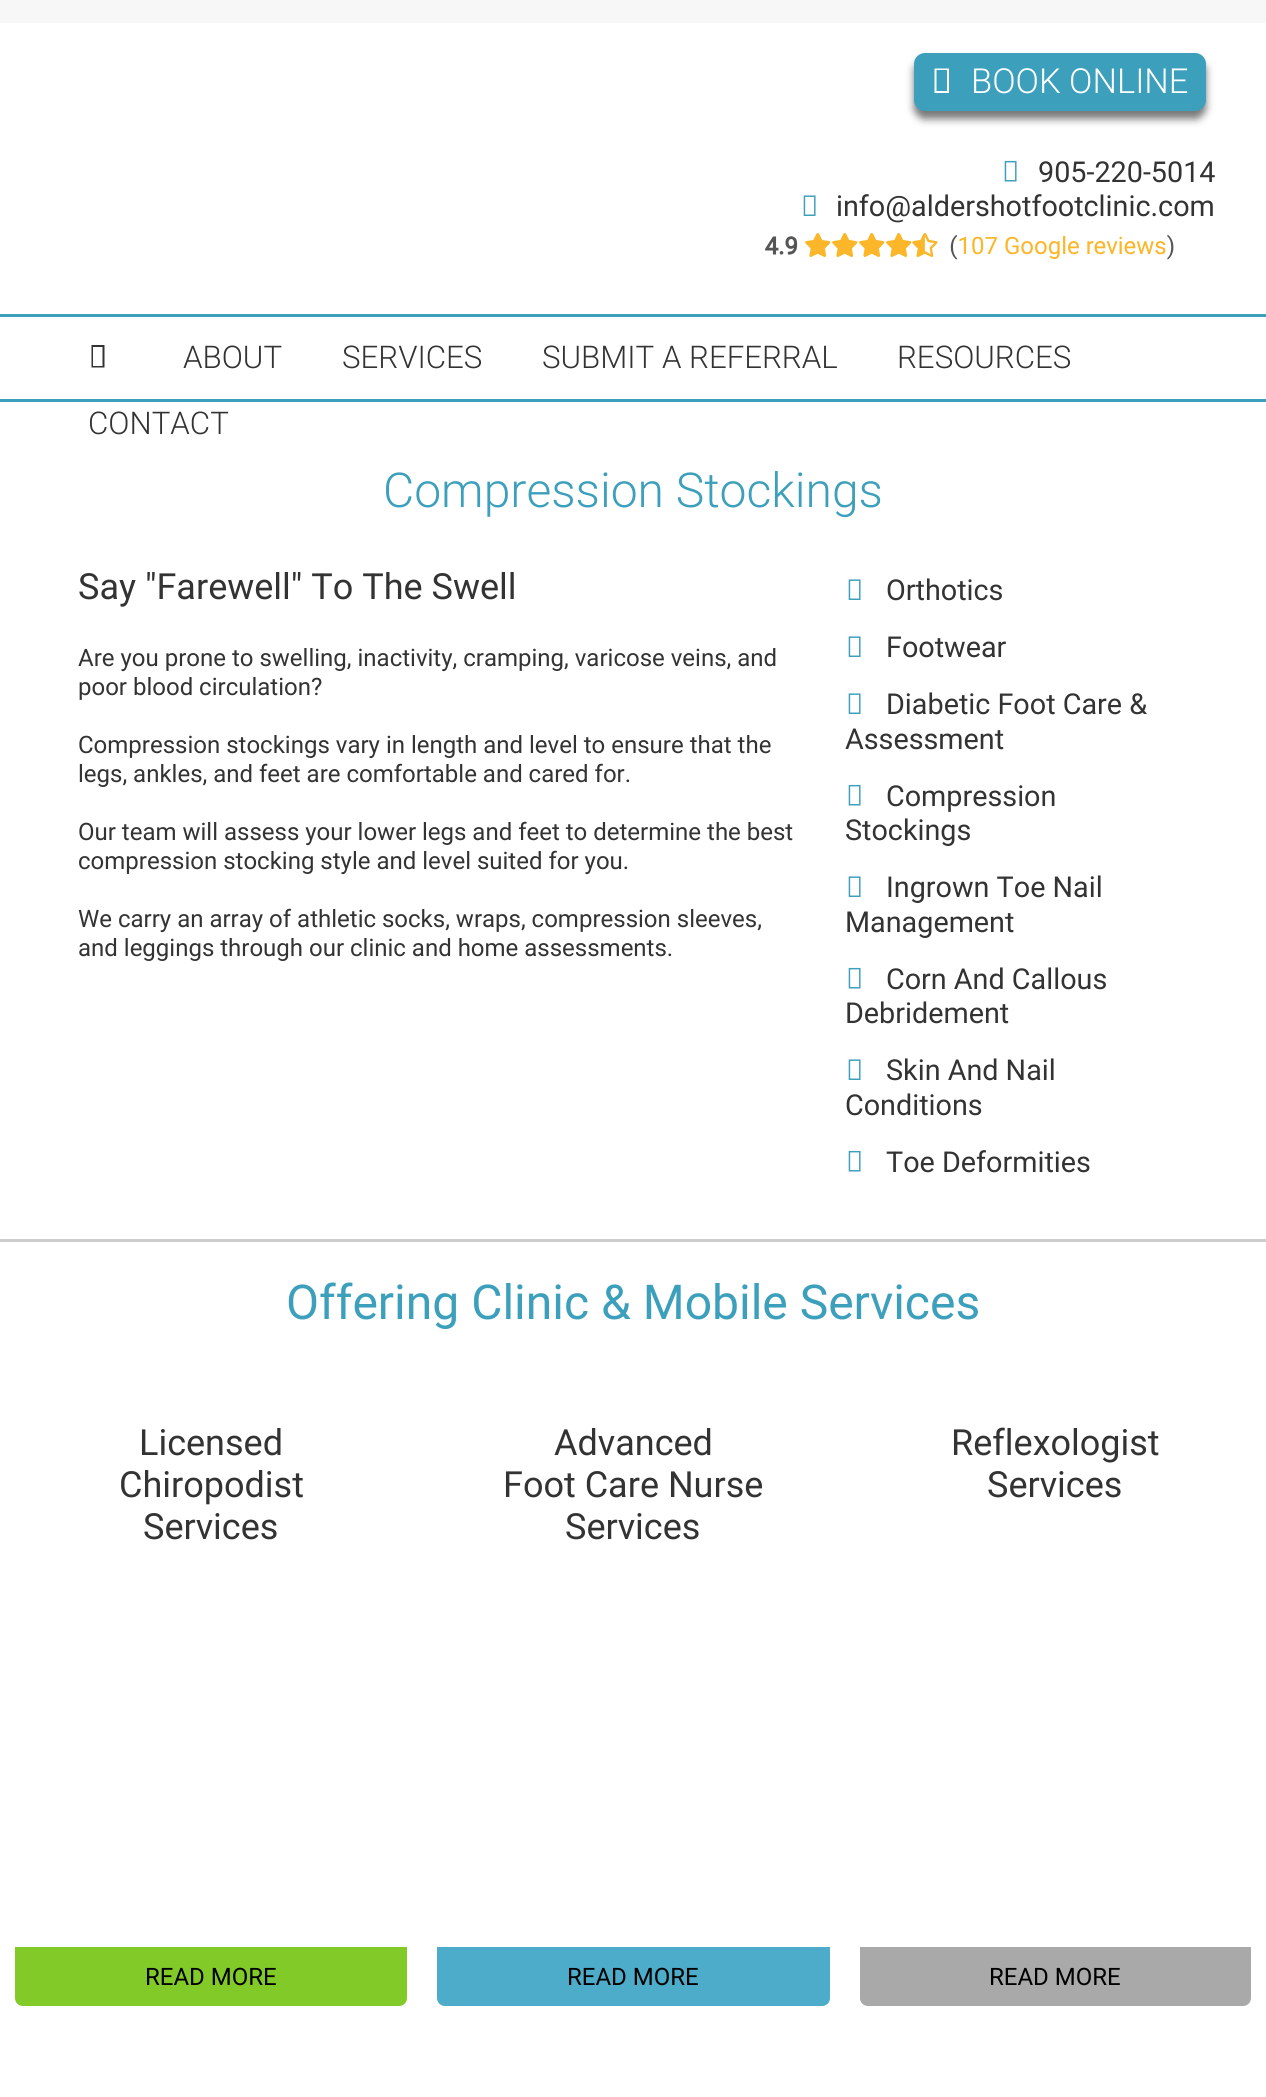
import math
import cairo


def use_color(cr, r, g, b):
  cr.set_source_rgb(r / 255, g / 255, b / 255)

def text(cr, x, y, s, family, size, color, bold=False, italic=False):
  cr.select_font_face(family, cairo.FONT_SLANT_ITALIC if italic else cairo.FONT_SLANT_NORMAL, cairo.FONT_WEIGHT_BOLD if bold else cairo.FONT_WEIGHT_NORMAL)
  cr.set_font_size(size)
  use_color(cr, *color)
  cr.move_to(x, y)
  cr.show_text(s)

def box(cr, x, y, w, h, *color):
  use_color(cr, *color)
  cr.rectangle(x, y, w, h)
  cr.fill()

def round_rect(cr, x, y, w, h, r):
  cr.new_sub_path()
  for i, (u, v) in enumerate([(x + w - r, y + h - r), (x + r, y + h - r), (x + r, y + r), (x + w - r, y + r)]):
    cr.arc(u, v, r, i * math.pi / 2, (i + 1) * math.pi / 2)
  cr.close_path()

def shadow(cr, x, y, w, h, r, blur, alpha):
  cr.push_group_with_content(cairo.CONTENT_ALPHA)
  cr.set_operator(cairo.OPERATOR_SOURCE)
  for i in range(15, -16, -2):
    e = blur * i / 6
    if min(w, h) + 2 * e > 0:
      cr.set_source_rgba(0, 0, 0, alpha * math.erfc((i - 1) / 8.5) / 2)
      round_rect(cr, x - e, y - e, w + 2 * e, h + 2 * e, max(0, min(r + e + blur * .6, min(w, h) / 2 + e)))
      cr.fill()
  cr.mask(cr.pop_group())

def picture(cr, path, x, y, w, h):
  cr.save()
  cr.set_source_surface(cairo.ImageSurface.create_from_png(path), x, y)
  cr.rectangle(x, y, w, h)
  cr.fill()
  cr.restore()

def draw(cr):
  use_color(cr, 255, 255, 255)
  cr.paint()
  box(cr, 0, 0, 1266, 23, 247, 247, 247)
  use_color(cr, 119, 119, 119)
  shadow(cr, 914, 60, 292, 59, 11, 4, 1)
  use_color(cr, 60, 159, 188)
  round_rect(cr, 914, 53, 292, 58, 11)
  cr.fill()
  use_color(cr, 255, 255, 255)
  cr.new_path()
  cr.move_to(934.5, 93)
  cr.line_to(934.5, 68.5)
  cr.line_to(949, 68.5)
  cr.line_to(949, 93)
  cr.close_path()
  cr.move_to(936.5, 91)
  cr.line_to(947, 91)
  cr.line_to(947, 70)
  cr.line_to(936.5, 70)
  cr.close_path()
  cr.fill()
  picture(cr, "img_01.png", 1004, 160, 13, 22)
  picture(cr, "img_02.png", 803, 195, 13, 21)
  picture(cr, "img_03.png", 765, 233, 409, 27)
  box(cr, 0, 314, 1266, 3, 60, 159, 188)
  box(cr, 0, 399, 1266, 3, 60, 159, 188)
  use_color(cr, 51, 51, 51)
  cr.new_path()
  cr.move_to(91.5, 367.5)
  cr.line_to(91.5, 345)
  cr.line_to(104.5, 345)
  cr.line_to(104.5, 367.5)
  cr.close_path()
  cr.move_to(93, 366)
  cr.line_to(102.5, 366)
  cr.line_to(102.5, 347)
  cr.line_to(93, 347)
  cr.close_path()
  cr.fill()
  box(cr, 0, 1239, 1266, 3, 204, 204, 204)
  picture(cr, "img_02.png", 848, 579, 13, 21)
  picture(cr, "img_02.png", 848, 636, 13, 21)
  picture(cr, "img_02.png", 848, 693, 13, 21)
  picture(cr, "img_01.png", 848, 784, 13, 22)
  picture(cr, "img_02.png", 848, 876, 13, 21)
  picture(cr, "img_01.png", 848, 967, 13, 22)
  picture(cr, "img_02.png", 848, 1059, 13, 21)
  picture(cr, "img_01.png", 848, 1150, 13, 22)
  use_color(cr, 129, 202, 39)
  cr.new_path()
  cr.move_to(15, 1947)
  cr.line_to(407, 1947)
  cr.line_to(407, 1998)
  cr.curve_to(407, 2002.5, 403.5, 2006, 399, 2006)
  cr.line_to(23, 2006)
  cr.curve_to(18.5, 2006, 15, 2002.5, 15, 1998)
  cr.close_path()
  cr.fill()
  use_color(cr, 76, 172, 201)
  cr.new_path()
  cr.move_to(437, 1947)
  cr.line_to(830, 1947)
  cr.line_to(830, 1998)
  cr.curve_to(830, 2002.5, 826.5, 2006, 822, 2006)
  cr.line_to(445, 2006)
  cr.curve_to(440.5, 2006, 437, 2002.5, 437, 1998)
  cr.close_path()
  cr.fill()
  use_color(cr, 170, 169, 169)
  cr.new_path()
  cr.move_to(860, 1947)
  cr.line_to(1251, 1947)
  cr.line_to(1251, 1998)
  cr.curve_to(1251, 2002.5, 1247.5, 2006, 1243, 2006)
  cr.line_to(868, 2006)
  cr.curve_to(863.5, 2006, 860, 2002.5, 860, 1998)
  cr.close_path()
  cr.fill()
  text(cr, 971, 93, "BOOK ONLINE", "Roboto Light", 34.5, (255, 255, 255))
  text(cr, 1038, 182, "905-220-5014", "Roboto", 28.75, (51, 51, 51))
  text(cr, 836, 216, "info@aldershotfootclinic.com", "Roboto", 28.75, (51, 51, 51))
  text(cr, 183, 368, "ABOUT", "Roboto Light", 31.25, (51, 51, 51))
  text(cr, 342, 368, "SERVICES", "Roboto Light", 31.25, (51, 51, 51))
  text(cr, 542, 368, "SUBMIT A REFERRAL", "Roboto Light", 31.25, (51, 51, 51))
  text(cr, 897, 368, "RESOURCES", "Roboto Light", 31.25, (51, 51, 51))
  text(cr, 88, 434, "CONTACT", "Roboto Light", 31.25, (51, 51, 51))
  text(cr, 383, 507, "Compression Stockings", "Roboto Light", 48, (60, 159, 188))
  text(cr, 78, 599, "Say \"Farewell\" To The Swell", "Roboto", 36, (51, 51, 51))
  text(cr, 78, 666, "Are you prone to swelling, inactivity, cramping, varicose veins, and", "Roboto", 24, (51, 51, 51))
  text(cr, 78, 695, "poor blood circulation?", "Roboto", 24, (51, 51, 51))
  text(cr, 78, 753, "Compression stockings vary in length and level to ensure that the", "Roboto", 24, (51, 51, 51))
  text(cr, 78, 782, "legs, ankles, and feet are comfortable and cared for.", "Roboto", 24, (51, 51, 51))
  text(cr, 78, 840, "Our team will assess your lower legs and feet to determine the best", "Roboto", 24, (51, 51, 51))
  text(cr, 78, 869, "compression stocking style and level suited for you.", "Roboto", 24, (51, 51, 51))
  text(cr, 78, 927, "We carry an array of athletic socks, wraps, compression sleeves,", "Roboto", 24, (51, 51, 51))
  text(cr, 78, 956, "and leggings through our clinic and home assessments.", "Roboto", 24, (51, 51, 51))
  text(cr, 886, 600, "Orthotics", "Roboto", 28.75, (51, 51, 51))
  text(cr, 886, 657, "Footwear", "Roboto", 28.75, (51, 51, 51))
  text(cr, 886, 714, "Diabetic Foot Care &", "Roboto", 28.75, (51, 51, 51))
  text(cr, 845, 749, "Assessment", "Roboto", 28.75, (51, 51, 51))
  text(cr, 886, 806, "Compression", "Roboto", 28.75, (51, 51, 51))
  text(cr, 845, 840, "Stockings", "Roboto", 28.75, (51, 51, 51))
  text(cr, 886, 897, "Ingrown Toe Nail", "Roboto", 28.75, (51, 51, 51))
  text(cr, 845, 932, "Management", "Roboto", 28.75, (51, 51, 51))
  text(cr, 886, 989, "Corn And Callous", "Roboto", 28.75, (51, 51, 51))
  text(cr, 845, 1023, "Debridement", "Roboto", 28.75, (51, 51, 51))
  text(cr, 886, 1080, "Skin And Nail", "Roboto", 28.75, (51, 51, 51))
  text(cr, 845, 1115, "Conditions", "Roboto", 28.75, (51, 51, 51))
  text(cr, 886, 1172, "Toe Deformities", "Roboto", 28.75, (51, 51, 51))
  text(cr, 286, 1319, "Offering Clinic & Mobile Services", "Roboto", 48, (60, 159, 188))
  text(cr, 139, 1455, "Licensed", "Roboto", 36, (51, 51, 51))
  text(cr, 119, 1497, "Chiropodist", "Roboto", 36, (51, 51, 51))
  text(cr, 143, 1539, "Services", "Roboto", 36, (51, 51, 51))
  text(cr, 145, 1985, "READ MORE", "Roboto", 24, (0, 0, 0))
  text(cr, 554, 1455, "Advanced", "Roboto", 36, (51, 51, 51))
  text(cr, 503, 1497, "Foot Care Nurse", "Roboto", 36, (51, 51, 51))
  text(cr, 565, 1539, "Services", "Roboto", 36, (51, 51, 51))
  text(cr, 567, 1985, "READ MORE", "Roboto", 24, (0, 0, 0))
  text(cr, 951, 1455, "Reflexologist", "Roboto", 36, (51, 51, 51))
  text(cr, 987, 1497, "Services", "Roboto", 36, (51, 51, 51))
  text(cr, 989, 1985, "READ MORE", "Roboto", 24, (0, 0, 0))


surface = cairo.ImageSurface(cairo.FORMAT_RGB24, 1266, 2097)
cr = cairo.Context(surface)
options = cairo.FontOptions()
options.set_hint_metrics(cairo.HINT_METRICS_OFF)
options.set_hint_style(cairo.HINT_STYLE_NONE)
cr.set_font_options(options)
cr.set_miter_limit(4)
draw(cr)
surface.write_to_png("out.png")
